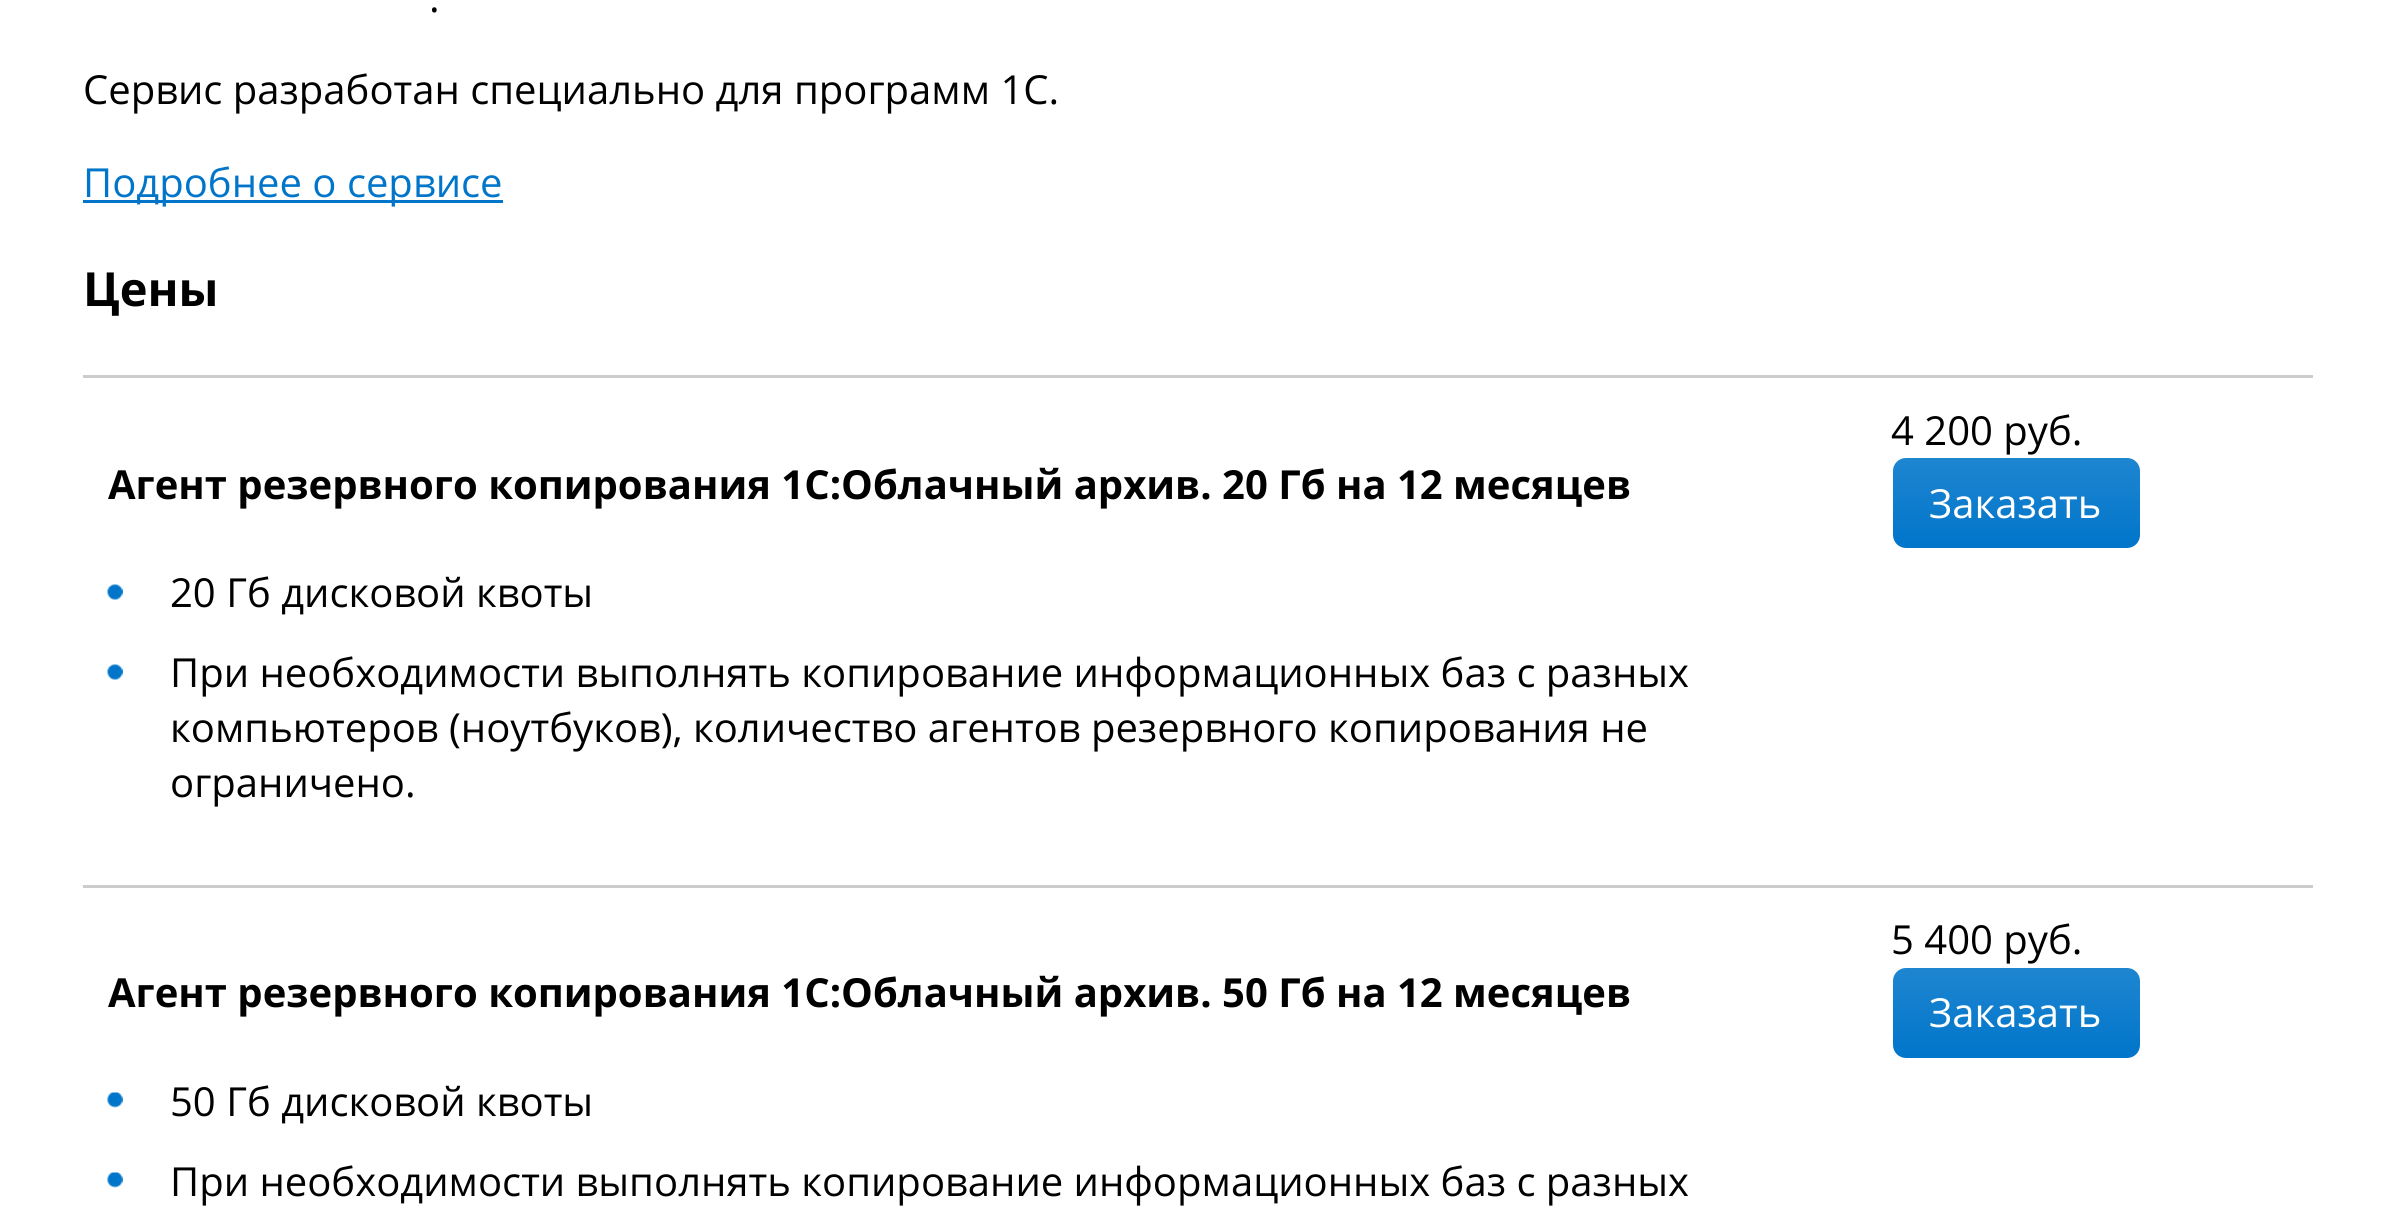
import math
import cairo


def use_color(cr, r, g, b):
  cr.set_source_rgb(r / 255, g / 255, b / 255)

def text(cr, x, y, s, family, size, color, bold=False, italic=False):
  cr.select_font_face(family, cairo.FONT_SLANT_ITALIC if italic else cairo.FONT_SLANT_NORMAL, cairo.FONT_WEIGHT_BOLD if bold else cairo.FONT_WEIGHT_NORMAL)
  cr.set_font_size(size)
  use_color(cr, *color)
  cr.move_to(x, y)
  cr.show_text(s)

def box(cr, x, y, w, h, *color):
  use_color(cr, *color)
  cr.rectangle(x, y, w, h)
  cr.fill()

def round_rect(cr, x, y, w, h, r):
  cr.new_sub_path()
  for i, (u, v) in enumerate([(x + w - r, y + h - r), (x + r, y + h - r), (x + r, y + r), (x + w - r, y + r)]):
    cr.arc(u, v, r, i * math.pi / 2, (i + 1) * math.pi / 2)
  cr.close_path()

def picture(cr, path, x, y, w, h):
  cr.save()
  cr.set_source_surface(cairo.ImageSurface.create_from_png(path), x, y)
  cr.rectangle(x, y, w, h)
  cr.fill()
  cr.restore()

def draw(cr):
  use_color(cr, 255, 255, 255)
  cr.paint()
  box(cr, 83, 200, 420, 3, 0, 117, 202)
  box(cr, 83, 375, 2230, 3, 204, 204, 204)
  box(cr, 83, 885, 2230, 3, 204, 204, 204)
  picture(cr, "img_01.png", 107, 584, 16, 16)
  picture(cr, "img_01.png", 107, 664, 16, 16)
  use_color(cr, 0, 117, 202)
  round_rect(cr, 1893, 458, 247, 90, 13)
  cr.fill()
  gradient = cairo.LinearGradient(2016, 458, 2016, 548)
  gradient.add_color_stop_rgba(0, 1, 1, 1, 0.12)
  gradient.add_color_stop_rgba(1, 1, 1, 1, 0)
  cr.set_source(gradient)
  round_rect(cr, 1893, 458, 247, 90, 13)
  cr.fill()
  picture(cr, "img_02.png", 107, 1092, 16, 16)
  picture(cr, "img_02.png", 107, 1172, 16, 16)
  use_color(cr, 0, 117, 202)
  round_rect(cr, 1893, 968, 247, 90, 13)
  cr.fill()
  gradient = cairo.LinearGradient(2016, 968, 2016, 1058)
  gradient.add_color_stop_rgba(0, 1, 1, 1, 0.12)
  gradient.add_color_stop_rgba(1, 1, 1, 1, 0)
  cr.set_source(gradient)
  round_rect(cr, 1893, 968, 247, 90, 13)
  cr.fill()
  text(cr, 429, 12, ".", "Open Sans", 40, (0, 0, 0))
  text(cr, 83, 104, "Сервис разработан специально для программ 1С.", "Open Sans", 40, (0, 0, 0))
  text(cr, 83, 197, "Подробнее о сервисе", "Open Sans", 40, (0, 117, 202))
  text(cr, 83, 306, "Цены", "Open Sans", 47, (0, 0, 0), bold=True)
  text(cr, 108, 499, "Агент резервного копирования 1С:Облачный архив. 20 Гб на 12 месяцев", "Open Sans", 40, (0, 0, 0), bold=True)
  text(cr, 170, 607, "20 Гб дисковой квоты", "Open Sans", 40, (0, 0, 0))
  text(cr, 170, 687, "При необходимости выполнять копирование информационных баз с разных", "Open Sans", 40, (0, 0, 0))
  text(cr, 170, 742, "компьютеров (ноутбуков), количество агентов резервного копирования не", "Open Sans", 40, (0, 0, 0))
  text(cr, 170, 797, "ограничено.", "Open Sans", 40, (0, 0, 0))
  text(cr, 1891, 445, "4 200 руб.", "Open Sans", 40, (0, 0, 0))
  text(cr, 1929, 518, "Заказать", "Open Sans", 40, (255, 255, 255))
  text(cr, 108, 1007, "Агент резервного копирования 1С:Облачный архив. 50 Гб на 12 месяцев", "Open Sans", 40, (0, 0, 0), bold=True)
  text(cr, 170, 1116, "50 Гб дисковой квоты", "Open Sans", 40, (0, 0, 0))
  text(cr, 170, 1196, "При необходимости выполнять копирование информационных баз с разных", "Open Sans", 40, (0, 0, 0))
  text(cr, 1891, 954, "5 400 руб.", "Open Sans", 40, (0, 0, 0))
  text(cr, 1929, 1027, "Заказать", "Open Sans", 40, (255, 255, 255))


surface = cairo.ImageSurface(cairo.FORMAT_RGB24, 2395, 1231)
cr = cairo.Context(surface)
options = cairo.FontOptions()
options.set_hint_metrics(cairo.HINT_METRICS_OFF)
options.set_hint_style(cairo.HINT_STYLE_NONE)
cr.set_font_options(options)
cr.set_miter_limit(4)
draw(cr)
surface.write_to_png("out.png")
